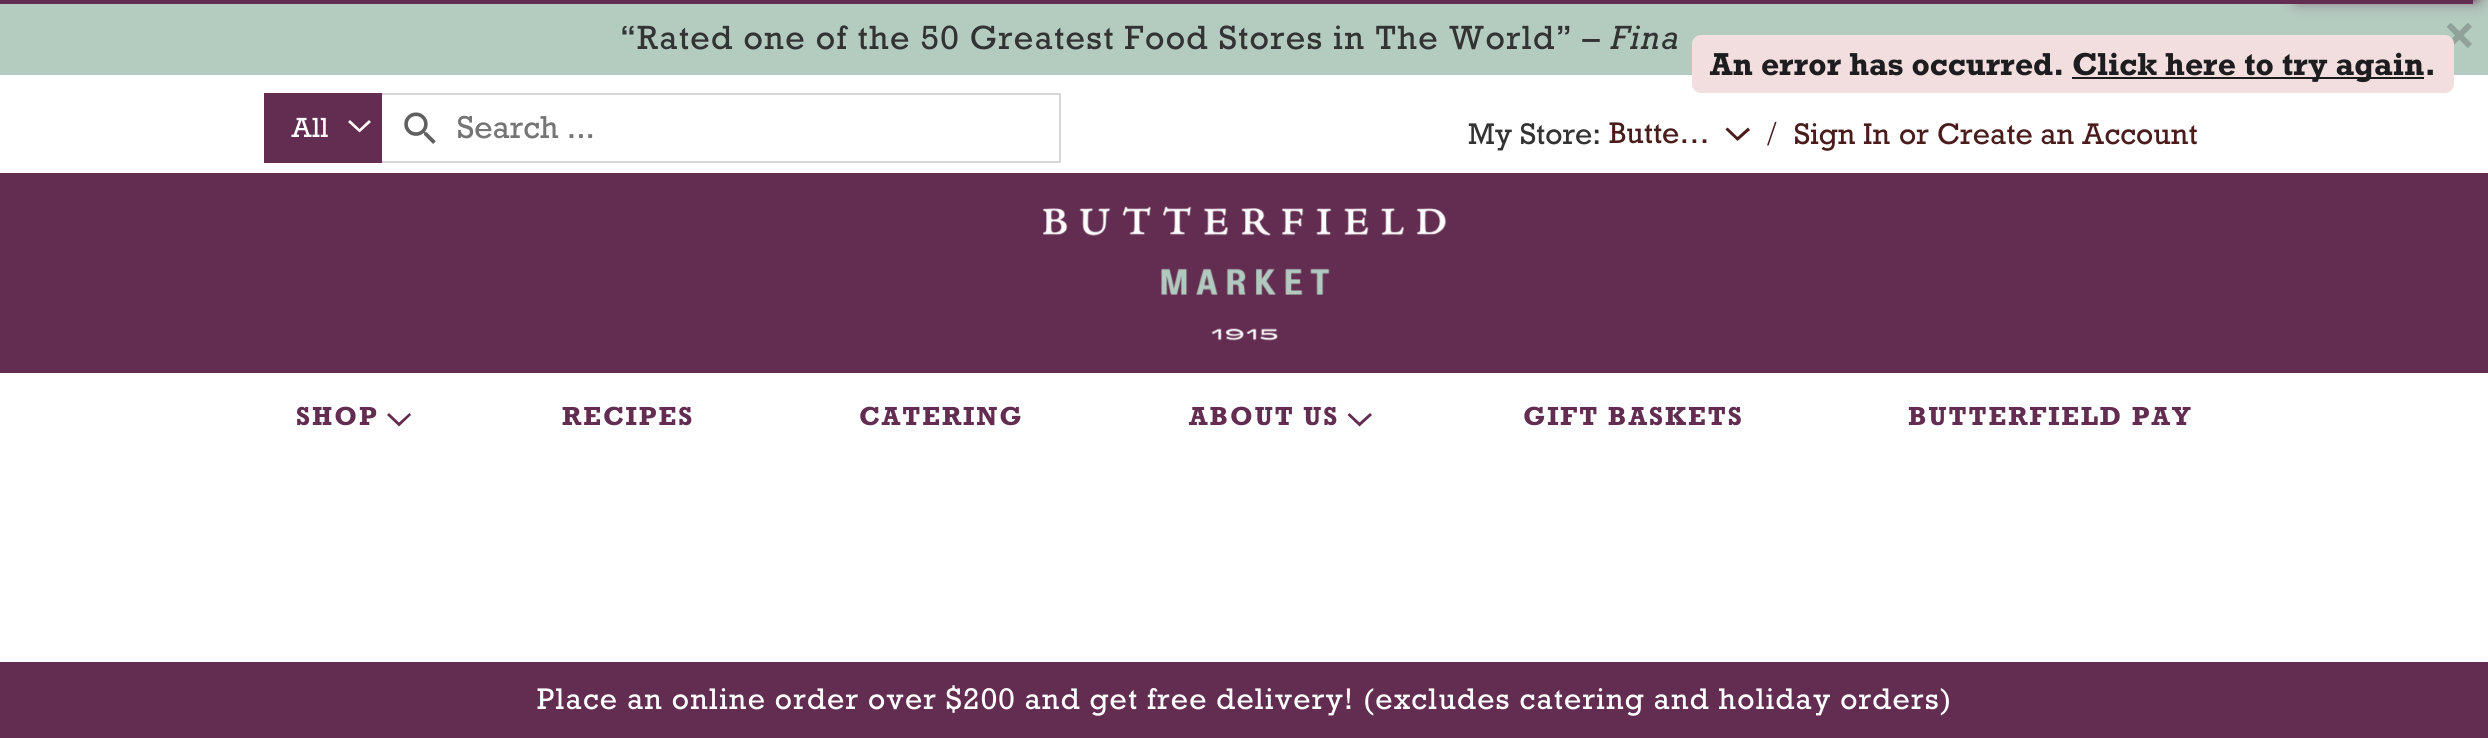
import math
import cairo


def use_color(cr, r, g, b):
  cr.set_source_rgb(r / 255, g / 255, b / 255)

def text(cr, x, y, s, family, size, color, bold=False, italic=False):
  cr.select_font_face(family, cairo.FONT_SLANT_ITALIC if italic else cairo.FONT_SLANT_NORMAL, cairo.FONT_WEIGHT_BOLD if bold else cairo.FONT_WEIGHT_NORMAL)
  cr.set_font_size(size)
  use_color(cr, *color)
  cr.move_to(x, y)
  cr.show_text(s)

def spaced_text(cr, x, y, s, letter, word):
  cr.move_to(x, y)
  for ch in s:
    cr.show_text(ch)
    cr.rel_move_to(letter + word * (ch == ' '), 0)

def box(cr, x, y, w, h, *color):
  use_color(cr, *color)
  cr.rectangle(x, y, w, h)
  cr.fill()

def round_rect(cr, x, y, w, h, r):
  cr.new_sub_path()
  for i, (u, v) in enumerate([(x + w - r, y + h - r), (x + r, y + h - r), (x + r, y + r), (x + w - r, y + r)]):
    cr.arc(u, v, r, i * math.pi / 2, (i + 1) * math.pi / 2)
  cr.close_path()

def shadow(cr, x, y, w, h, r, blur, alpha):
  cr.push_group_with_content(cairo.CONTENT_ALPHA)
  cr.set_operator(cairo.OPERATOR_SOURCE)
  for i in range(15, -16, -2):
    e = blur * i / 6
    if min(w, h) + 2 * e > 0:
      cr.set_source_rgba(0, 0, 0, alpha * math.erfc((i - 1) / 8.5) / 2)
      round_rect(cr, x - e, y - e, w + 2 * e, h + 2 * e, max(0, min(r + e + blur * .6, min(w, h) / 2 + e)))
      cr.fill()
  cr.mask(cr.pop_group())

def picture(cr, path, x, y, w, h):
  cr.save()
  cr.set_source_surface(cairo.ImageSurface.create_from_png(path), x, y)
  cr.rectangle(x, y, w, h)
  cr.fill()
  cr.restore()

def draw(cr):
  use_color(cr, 255, 255, 255)
  cr.paint()
  box(cr, 0, 0, 2488, 75, 180, 203, 192)
  box(cr, 380, 93, 681, 2, 214, 214, 214)
  box(cr, 1059, 93, 2, 70, 214, 214, 214)
  box(cr, 380, 161, 681, 2, 214, 214, 214)
  box(cr, 264, 93, 118, 70, 98, 45, 80)
  use_color(cr, 255, 255, 255)
  cr.new_path()
  cr.move_to(358.5, 131.5)
  cr.line_to(348, 122)
  cr.line_to(350, 120)
  cr.line_to(359.5, 129)
  cr.line_to(369, 120)
  cr.line_to(371, 122)
  cr.line_to(359.5, 132.5)
  cr.close_path()
  cr.fill()
  picture(cr, "img_01.png", 404, 112, 32, 32)
  use_color(cr, 74, 28, 28)
  cr.new_path()
  cr.move_to(1736.5, 140)
  cr.line_to(1725.5, 129.5)
  cr.line_to(1727.5, 127.5)
  cr.line_to(1737.5, 137)
  cr.line_to(1748, 127.5)
  cr.line_to(1750, 130)
  cr.line_to(1737.5, 141)
  cr.close_path()
  cr.fill()
  box(cr, 0, 173, 2488, 200, 98, 45, 80)
  picture(cr, "img_02.png", 1042, 206, 404, 135)
  cr.new_path()
  cr.move_to(398, 425.5)
  cr.line_to(387, 415)
  cr.line_to(389, 413)
  cr.line_to(399, 422.5)
  cr.line_to(409.5, 413)
  cr.line_to(411, 415)
  cr.line_to(399, 426.5)
  cr.close_path()
  cr.fill()
  cr.new_path()
  cr.move_to(1358.5, 425.5)
  cr.line_to(1347.5, 415)
  cr.line_to(1349.5, 413)
  cr.line_to(1359.5, 422.5)
  cr.line_to(1370, 413)
  cr.line_to(1372, 415)
  cr.line_to(1359.5, 426.5)
  cr.close_path()
  cr.fill()
  box(cr, 0, 0, 2473, 4, 98, 45, 80)
  use_color(cr, 98, 45, 80)
  shadow(cr, 2300, -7, 175, 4, 0, 4.5, 1)
  shadow(cr, 2300, -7, 175, 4, 0, 9, 1)
  box(cr, 0, 662, 2488, 76, 98, 45, 80)
  cr.select_font_face("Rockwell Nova")
  cr.set_font_size(31.5)
  use_color(cr, 51, 51, 51)
  spaced_text(cr, 620, 49, "“Rated one of the 50 Greatest Food Stores in The World” –", 1.25, 0)
  cr.select_font_face("Rockwell Nova", cairo.FONT_SLANT_ITALIC)
  spaced_text(cr, 1611, 49, "Fina", 1.25, 0)
  text(cr, 2443, 52, "×", "Rockwell Nova", 45, (144, 162, 154), bold=True)
  text(cr, 291, 137, "All", "Rockwell Nova", 26, (255, 255, 255))
  text(cr, 457, 138, "Search ...", "Rockwell Nova", 29.75, (117, 117, 117))
  text(cr, 1468, 144, "My Store:", "Rockwell Nova", 28, (51, 51, 51))
  text(cr, 1609, 143, "Butte…", "Rockwell Nova", 28, (74, 28, 28))
  text(cr, 1767, 145, "/", "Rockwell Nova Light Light", 31.5, (74, 28, 28))
  text(cr, 1794, 144, "Sign In", "Rockwell Nova", 28, (74, 28, 28))
  text(cr, 1899, 144, "or", "Rockwell Nova", 28, (74, 28, 28))
  text(cr, 1937, 144, "Create an Account", "Rockwell Nova", 28, (74, 28, 28))
  cr.select_font_face("Rockwell Nova", cairo.FONT_SLANT_NORMAL, cairo.FONT_WEIGHT_BOLD)
  cr.set_font_size(24.5)
  use_color(cr, 98, 45, 80)
  spaced_text(cr, 296, 425, "SHOP", 2, 0)
  spaced_text(cr, 562, 425, "RECIPES", 2, 0)
  spaced_text(cr, 859, 425, "CATERING", 2, 0)
  spaced_text(cr, 1189, 425, "ABOUT US", 2, 0)
  spaced_text(cr, 1523, 425, "GIFT BASKETS", 2, 0)
  spaced_text(cr, 1908, 425, "BUTTERFIELD PAY", 2, 0)
  use_color(cr, 242, 222, 222)
  round_rect(cr, 1692, 35, 762, 58, 9)
  cr.fill()
  text(cr, 1710, 75, "An error has occurred.", "Rockwell Nova", 29.75, (29, 29, 31), bold=True)
  box(cr, 2072, 77, 352, 2, 29, 29, 31)
  text(cr, 2072, 75, "Click here to try again.", "Rockwell Nova", 29.75, (29, 29, 31), bold=True)
  cr.select_font_face("Rockwell Nova")
  cr.set_font_size(28)
  use_color(cr, 255, 255, 255)
  spaced_text(cr, 537, 709, "Place an online order over $200 and get free delivery! (excludes catering and holiday orders)", 1.12, 0)


surface = cairo.ImageSurface(cairo.FORMAT_RGB24, 2488, 738)
cr = cairo.Context(surface)
options = cairo.FontOptions()
options.set_hint_metrics(cairo.HINT_METRICS_OFF)
options.set_hint_style(cairo.HINT_STYLE_NONE)
cr.set_font_options(options)
cr.set_miter_limit(4)
draw(cr)
surface.write_to_png("out.png")
